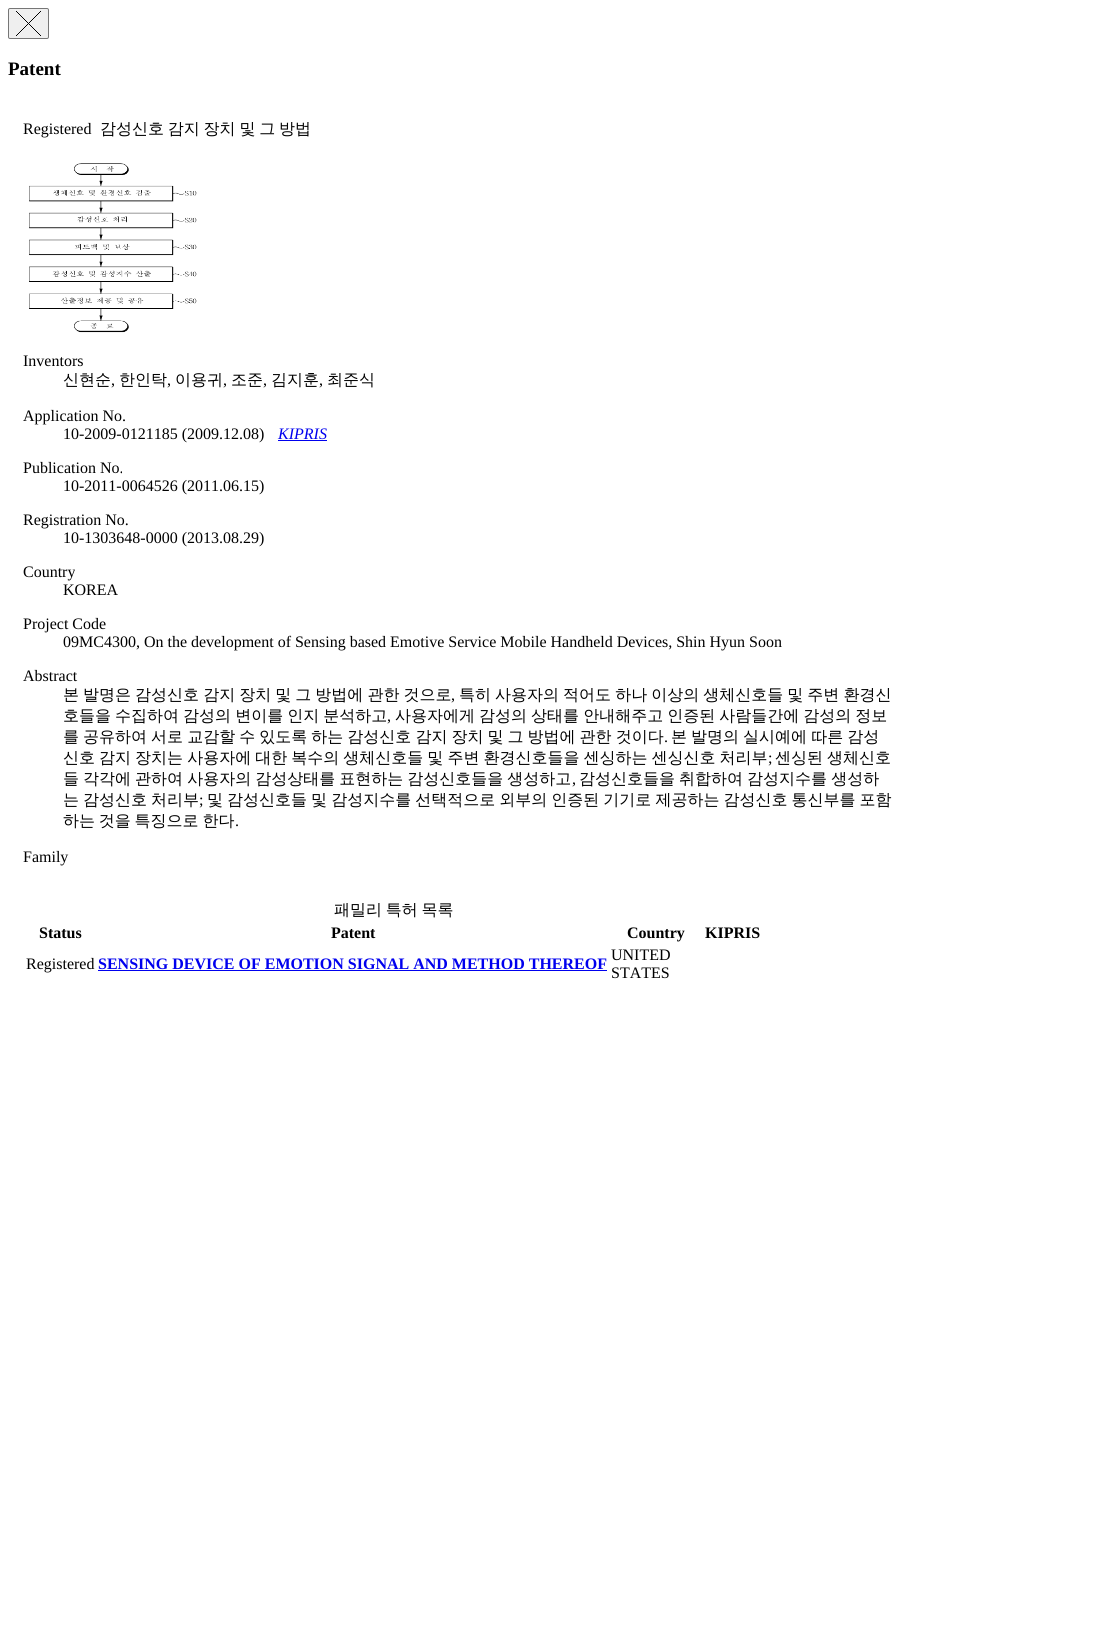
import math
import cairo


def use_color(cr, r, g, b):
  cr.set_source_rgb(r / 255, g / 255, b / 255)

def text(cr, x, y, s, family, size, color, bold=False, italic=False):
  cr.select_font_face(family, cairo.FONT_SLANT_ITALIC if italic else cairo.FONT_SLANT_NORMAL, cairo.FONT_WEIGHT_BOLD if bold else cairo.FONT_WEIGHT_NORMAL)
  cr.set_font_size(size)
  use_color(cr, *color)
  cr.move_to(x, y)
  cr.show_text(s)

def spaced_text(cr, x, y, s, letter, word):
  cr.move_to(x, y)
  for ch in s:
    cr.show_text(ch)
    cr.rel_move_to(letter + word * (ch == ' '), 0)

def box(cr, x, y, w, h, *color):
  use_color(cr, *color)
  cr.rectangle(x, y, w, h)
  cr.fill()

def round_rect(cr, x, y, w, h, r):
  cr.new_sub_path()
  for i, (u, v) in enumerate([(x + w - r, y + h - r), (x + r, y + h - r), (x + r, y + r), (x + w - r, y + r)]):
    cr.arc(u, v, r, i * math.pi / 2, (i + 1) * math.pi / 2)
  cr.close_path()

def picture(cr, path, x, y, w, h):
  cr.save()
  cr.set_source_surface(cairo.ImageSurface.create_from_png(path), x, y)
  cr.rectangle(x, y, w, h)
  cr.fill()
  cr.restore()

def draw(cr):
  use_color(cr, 255, 255, 255)
  cr.paint()
  use_color(cr, 239, 239, 239)
  round_rect(cr, 8.5, 8.5, 40, 30, 1.5)
  cr.fill_preserve()
  use_color(cr, 118, 118, 118)
  cr.set_line_width(1)
  cr.stroke()
  picture(cr, "img_01.png", 16, 11, 25, 25)
  picture(cr, "img_02.png", 29, 163, 168, 170)
  box(cr, 278, 440, 49, 1, 0, 0, 238)
  box(cr, 98, 970, 509, 1, 0, 0, 238)
  text(cr, 8, 75, "Patent", "Liberation Serif", 19, (0, 0, 0), bold=True)
  text(cr, 23, 134, "Registered", "Liberation Serif", 16, (0, 0, 0))
  cr.select_font_face("WenQuanYi Zen Hei Medium")
  spaced_text(cr, 100, 134, "감성신호 감지 장치 및 그 방법", 0, -1)
  text(cr, 23, 366, "Inventors", "Liberation Serif", 16, (0, 0, 0))
  text(cr, 63, 385, "신현순", "WenQuanYi Zen Hei Medium", 16, (0, 0, 0))
  text(cr, 111, 385, ",", "Liberation Serif", 16, (0, 0, 0))
  text(cr, 119, 385, "한인탁", "WenQuanYi Zen Hei Medium", 16, (0, 0, 0))
  text(cr, 167, 385, ",", "Liberation Serif", 16, (0, 0, 0))
  text(cr, 175, 385, "이용귀", "WenQuanYi Zen Hei Medium", 16, (0, 0, 0))
  text(cr, 223, 385, ",", "Liberation Serif", 16, (0, 0, 0))
  text(cr, 231, 385, "조준", "WenQuanYi Zen Hei Medium", 16, (0, 0, 0))
  text(cr, 263, 385, ",", "Liberation Serif", 16, (0, 0, 0))
  text(cr, 271, 385, "김지훈", "WenQuanYi Zen Hei Medium", 16, (0, 0, 0))
  text(cr, 319, 385, ",", "Liberation Serif", 16, (0, 0, 0))
  text(cr, 327, 385, "최준식", "WenQuanYi Zen Hei Medium", 16, (0, 0, 0))
  text(cr, 23, 421, "Application No.", "Liberation Serif", 16, (0, 0, 0))
  text(cr, 63, 439, "10-2009-0121185 (2009.12.08)", "Liberation Serif", 16, (0, 0, 0))
  text(cr, 278, 439, "KIPRIS", "Liberation Serif", 16, (0, 0, 238), italic=True)
  text(cr, 23, 473, "Publication No.", "Liberation Serif", 16, (0, 0, 0))
  text(cr, 63, 491, "10-2011-0064526 (2011.06.15)", "Liberation Serif", 16, (0, 0, 0))
  text(cr, 23, 525, "Registration No.", "Liberation Serif", 16, (0, 0, 0))
  text(cr, 63, 543, "10-1303648-0000 (2013.08.29)", "Liberation Serif", 16, (0, 0, 0))
  text(cr, 23, 577, "Country", "Liberation Serif", 16, (0, 0, 0))
  text(cr, 63, 595, "KOREA", "Liberation Serif", 16, (0, 0, 0))
  text(cr, 23, 629, "Project Code", "Liberation Serif", 16, (0, 0, 0))
  text(cr, 63, 647, "09MC4300, On the development of Sensing based Emotive Service Mobile Handheld Devices, Shin Hyun Soon", "Liberation Serif", 16, (0, 0, 0))
  text(cr, 23, 681, "Abstract", "Liberation Serif", 16, (0, 0, 0))
  cr.select_font_face("WenQuanYi Zen Hei Medium")
  spaced_text(cr, 63, 700, "본 발명은 감성신호 감지 장치 및 그 방법에 관한 것으로", 0, -0.75)
  text(cr, 451, 700, ",", "Liberation Serif", 16, (0, 0, 0))
  cr.select_font_face("WenQuanYi Zen Hei Medium")
  spaced_text(cr, 459, 700, "특히 사용자의 적어도 하나 이상의 생체신호들 및 주변 환경신", 0, -0.75)
  spaced_text(cr, 63, 721, "호들을 수집하여 감성의 변이를 인지 분석하고", 0, -0.75)
  text(cr, 387, 721, ",", "Liberation Serif", 16, (0, 0, 0))
  cr.select_font_face("WenQuanYi Zen Hei Medium")
  spaced_text(cr, 395, 721, "사용자에게 감성의 상태를 안내해주고 인증된 사람들간에 감성의 정보", 0, -0.75)
  spaced_text(cr, 63, 742, "를 공유하여 서로 교감할 수 있도록 하는 감성신호 감지 장치 및 그 방법에 관한 것이다", 0, -0.75)
  text(cr, 664, 742, ".", "Liberation Serif", 16, (0, 0, 0))
  cr.select_font_face("WenQuanYi Zen Hei Medium")
  spaced_text(cr, 671, 742, "본 발명의 실시예에 따른 감성", 0, -0.75)
  spaced_text(cr, 63, 763, "신호 감지 장치는 사용자에 대한 복수의 생체신호들 및 주변 환경신호들을 센싱하는 센싱신호 처리부", 0, -0.75)
  text(cr, 768, 763, ";", "Liberation Serif", 16, (0, 0, 0))
  cr.select_font_face("WenQuanYi Zen Hei Medium")
  spaced_text(cr, 775, 763, "센싱된 생체신호", 0, -0.75)
  spaced_text(cr, 63, 784, "들 각각에 관하여 사용자의 감성상태를 표현하는 감성신호들을 생성하고", 0, -0.75)
  text(cr, 572, 784, ",", "Liberation Serif", 16, (0, 0, 0))
  cr.select_font_face("WenQuanYi Zen Hei Medium")
  spaced_text(cr, 579, 784, "감성신호들을 취합하여 감성지수를 생성하", 0, -0.75)
  spaced_text(cr, 63, 805, "는 감성신호 처리부", 0, -0.75)
  text(cr, 199, 805, ";", "Liberation Serif", 16, (0, 0, 0))
  cr.select_font_face("WenQuanYi Zen Hei Medium")
  spaced_text(cr, 207, 805, "및 감성신호들 및 감성지수를 선택적으로 외부의 인증된 기기로 제공하는 감성신호 통신부를 포함", 0, -0.75)
  spaced_text(cr, 63, 826, "하는 것을 특징으로 한다", 0, -1)
  text(cr, 235, 826, ".", "Liberation Serif", 16, (0, 0, 0))
  text(cr, 23, 862, "Family", "Liberation Serif", 16, (0, 0, 0))
  cr.select_font_face("WenQuanYi Zen Hei Medium")
  spaced_text(cr, 334, 915, "패밀리 특허 목록", 0, -1)
  text(cr, 39, 938, "Status", "Liberation Serif", 16, (0, 0, 0), bold=True)
  text(cr, 331, 938, "Patent", "Liberation Serif", 16, (0, 0, 0), bold=True)
  text(cr, 627, 938, "Country", "Liberation Serif", 16, (0, 0, 0), bold=True)
  text(cr, 705, 938, "KIPRIS", "Liberation Serif", 16, (0, 0, 0), bold=True)
  text(cr, 26, 969, "Registered", "Liberation Serif", 16, (0, 0, 0))
  text(cr, 98, 969, "SENSING DEVICE OF EMOTION SIGNAL AND METHOD THEREOF", "Liberation Serif", 16, (0, 0, 238), bold=True)
  text(cr, 611, 960, "UNITED", "Liberation Serif", 16, (0, 0, 0))
  text(cr, 611, 978, "STATES", "Liberation Serif", 16, (0, 0, 0))


surface = cairo.ImageSurface(cairo.FORMAT_RGB24, 1111, 1642)
cr = cairo.Context(surface)
options = cairo.FontOptions()
options.set_hint_metrics(cairo.HINT_METRICS_OFF)
options.set_hint_style(cairo.HINT_STYLE_NONE)
cr.set_font_options(options)
cr.set_miter_limit(4)
draw(cr)
surface.write_to_png("out.png")
